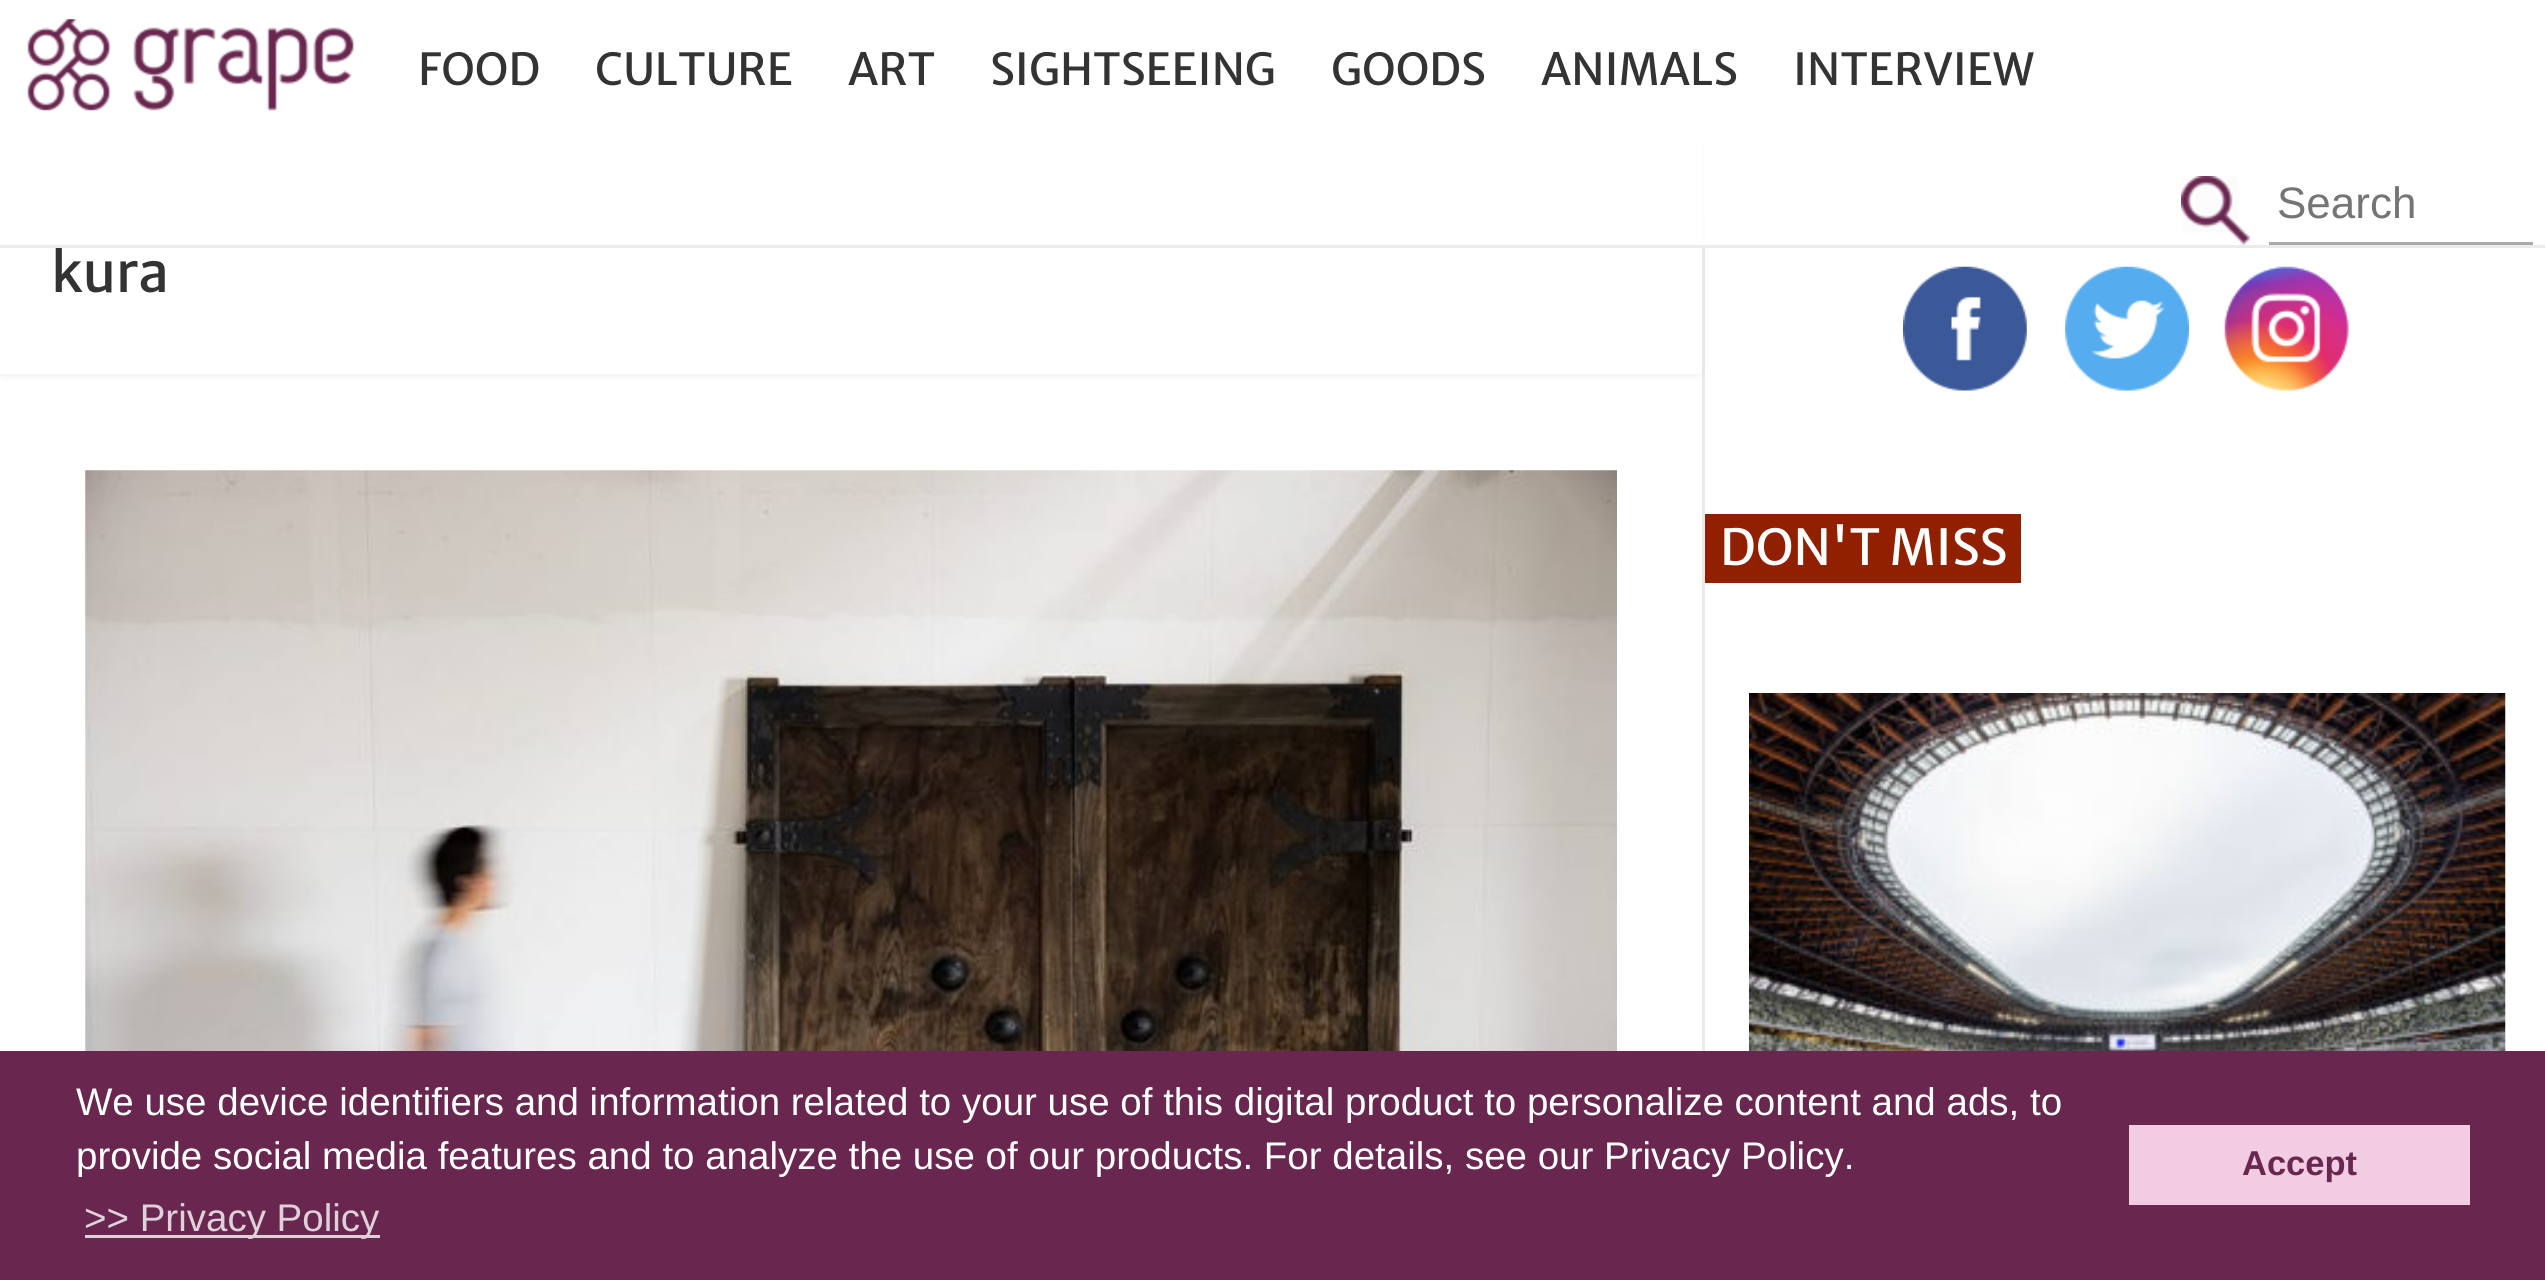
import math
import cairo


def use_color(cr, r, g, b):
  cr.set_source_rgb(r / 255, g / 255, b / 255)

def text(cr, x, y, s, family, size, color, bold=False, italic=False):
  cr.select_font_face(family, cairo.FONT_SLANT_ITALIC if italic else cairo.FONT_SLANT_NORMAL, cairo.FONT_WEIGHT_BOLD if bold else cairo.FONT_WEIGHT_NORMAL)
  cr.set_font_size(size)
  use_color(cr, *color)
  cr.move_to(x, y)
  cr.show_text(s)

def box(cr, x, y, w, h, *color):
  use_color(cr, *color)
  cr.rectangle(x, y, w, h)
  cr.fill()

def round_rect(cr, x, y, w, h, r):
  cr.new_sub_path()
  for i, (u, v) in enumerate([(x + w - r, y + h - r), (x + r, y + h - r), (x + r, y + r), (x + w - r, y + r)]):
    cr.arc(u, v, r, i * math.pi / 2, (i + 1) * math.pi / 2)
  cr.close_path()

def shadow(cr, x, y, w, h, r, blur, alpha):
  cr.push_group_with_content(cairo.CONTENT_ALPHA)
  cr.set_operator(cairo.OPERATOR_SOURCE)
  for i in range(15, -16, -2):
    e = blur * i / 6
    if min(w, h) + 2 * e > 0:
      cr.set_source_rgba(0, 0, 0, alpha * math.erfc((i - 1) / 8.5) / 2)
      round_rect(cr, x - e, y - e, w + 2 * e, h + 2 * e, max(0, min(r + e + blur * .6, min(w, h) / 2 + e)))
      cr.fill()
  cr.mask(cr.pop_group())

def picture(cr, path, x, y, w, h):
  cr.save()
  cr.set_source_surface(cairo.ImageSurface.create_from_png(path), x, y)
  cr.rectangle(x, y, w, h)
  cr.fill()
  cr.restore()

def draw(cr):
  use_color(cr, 255, 255, 255)
  cr.paint()
  box(cr, 1702, 143, 3, 908, 235, 235, 235)
  cr.save()
  cr.set_fill_rule(cairo.FILL_RULE_EVEN_ODD)
  cr.new_path()
  cr.move_to(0, 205)
  cr.line_to(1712, 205)
  cr.line_to(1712, 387)
  cr.line_to(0, 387)
  cr.close_path()
  cr.move_to(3, 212)
  cr.line_to(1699, 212)
  cr.curve_to(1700.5, 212, 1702, 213.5, 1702, 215)
  cr.line_to(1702, 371)
  cr.curve_to(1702, 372.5, 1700.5, 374, 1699, 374)
  cr.line_to(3, 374)
  cr.curve_to(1.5, 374, 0, 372.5, 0, 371)
  cr.line_to(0, 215)
  cr.curve_to(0, 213.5, 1.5, 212, 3, 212)
  cr.close_path()
  cr.clip()
  use_color(cr, 0, 0, 0)
  shadow(cr, 0, 215, 1702, 162, 3, 3, 0.05)
  cr.restore()
  cr.set_source_rgba(1, 1, 1, 0.9)
  cr.rectangle(1702, 143, 3, 102)
  cr.fill()
  picture(cr, "img_01.png", 27, 19, 328, 92)
  picture(cr, "img_02.png", 2181, 176, 69, 69)
  box(cr, 2269, 242, 264, 3, 170, 170, 170)
  picture(cr, "img_03.png", 85, 470, 1532, 581)
  picture(cr, "img_04.png", 1903, 266, 124, 125)
  picture(cr, "img_05.png", 2065, 266, 124, 125)
  picture(cr, "img_06.png", 2224, 266, 125, 125)
  box(cr, 1705, 514, 316, 69, 145, 32, 1)
  picture(cr, "img_07.png", 1749, 693, 757, 358)
  box(cr, 0, 1051, 2545, 229, 105, 39, 79)
  box(cr, 85, 1235, 295, 3, 223, 209, 217)
  box(cr, 2129, 1125, 341, 80, 241, 204, 226)
  text(cr, 418, 85, "FOOD", "Merriweather Sans", 44, (51, 51, 51))
  text(cr, 595, 85, "CULTURE", "Merriweather Sans", 44, (51, 51, 51))
  text(cr, 848, 85, "ART", "Merriweather Sans", 44, (51, 51, 51))
  text(cr, 990, 85, "SIGHTSEEING", "Merriweather Sans", 44, (51, 51, 51))
  text(cr, 1331, 85, "GOODS", "Merriweather Sans", 44, (51, 51, 51))
  text(cr, 1541, 85, "ANIMALS", "Merriweather Sans", 44, (51, 51, 51))
  text(cr, 1793, 85, "INTERVIEW", "Merriweather Sans", 44, (51, 51, 51))
  text(cr, 2277, 218, "Search", "Liberation Sans", 44, (117, 117, 117))
  text(cr, 51, 292, "kura", "Merriweather Sans", 55, (51, 51, 51))
  box(cr, 0, 245, 2545, 3, 235, 235, 235)
  text(cr, 1720, 565, "DON'T MISS", "Merriweather Sans", 49.5, (255, 255, 255))
  text(cr, 76, 1115, "We use device identifiers and information related to your use of this digital product to personalize content and ads, to", "Liberation Sans", 38.5, (255, 255, 255))
  text(cr, 76, 1169, "provide social media features and to analyze the use of our products. For details, see our Privacy Policy.", "Liberation Sans", 38.5, (255, 255, 255))
  text(cr, 84, 1231, ">> Privacy Policy", "Liberation Sans", 38.5, (223, 209, 217))
  text(cr, 2242, 1175, "Accept", "Liberation Sans", 34.5, (105, 39, 79), bold=True)


surface = cairo.ImageSurface(cairo.FORMAT_RGB24, 2545, 1280)
cr = cairo.Context(surface)
options = cairo.FontOptions()
options.set_hint_metrics(cairo.HINT_METRICS_OFF)
options.set_hint_style(cairo.HINT_STYLE_NONE)
cr.set_font_options(options)
cr.set_miter_limit(4)
draw(cr)
surface.write_to_png("out.png")
